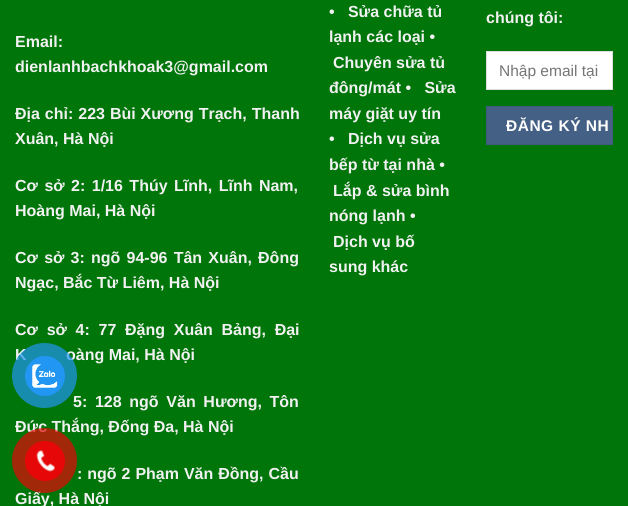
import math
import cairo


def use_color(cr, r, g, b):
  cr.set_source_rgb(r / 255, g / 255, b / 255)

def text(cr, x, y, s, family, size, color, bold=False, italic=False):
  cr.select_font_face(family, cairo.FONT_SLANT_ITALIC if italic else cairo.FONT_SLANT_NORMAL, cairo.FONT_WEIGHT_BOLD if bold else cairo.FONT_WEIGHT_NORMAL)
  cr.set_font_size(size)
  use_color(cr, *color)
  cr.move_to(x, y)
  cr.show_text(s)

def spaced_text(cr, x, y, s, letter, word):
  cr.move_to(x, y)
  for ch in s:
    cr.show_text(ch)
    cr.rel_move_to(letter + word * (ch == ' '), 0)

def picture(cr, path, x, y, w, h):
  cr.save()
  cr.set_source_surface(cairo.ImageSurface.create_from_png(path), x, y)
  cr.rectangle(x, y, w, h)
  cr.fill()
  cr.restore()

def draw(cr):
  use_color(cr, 0, 117, 9)
  cr.paint()
  use_color(cr, 255, 255, 255)
  cr.rectangle(486.5, 51.5, 126, 38)
  cr.fill_preserve()
  use_color(cr, 221, 221, 221)
  cr.set_line_width(1)
  cr.stroke()
  use_color(cr, 68, 96, 132)
  cr.rectangle(486.5, 106.5, 126, 38)
  cr.fill_preserve()
  use_color(cr, 65, 91, 125)
  cr.stroke()
  text(cr, 15, 47, "Email:", "Liberation Sans", 16, (241, 241, 241), bold=True)
  text(cr, 15, 72, "dienlanhbachkhoak3@gmail.com", "Liberation Sans", 16, (241, 241, 241), bold=True)
  spaced_text(cr, 15, 119, "Địa chỉ: 223 Bùi Xương Trạch, Thanh", 0, 0.5)
  text(cr, 15, 144, "Xuân, Hà Nội", "Liberation Sans", 16, (241, 241, 241), bold=True)
  spaced_text(cr, 15, 191, "Cơ sở 2: 1/16 Thúy Lĩnh, Lĩnh Nam,", 0, 2)
  text(cr, 15, 216, "Hoàng Mai, Hà Nội", "Liberation Sans", 16, (241, 241, 241), bold=True)
  spaced_text(cr, 15, 263, "Cơ sở 3: ngõ 94-96 Tân Xuân, Đông", 0, 1.75)
  text(cr, 15, 288, "Ngạc, Bắc Từ Liêm, Hà Nội", "Liberation Sans", 16, (241, 241, 241), bold=True)
  spaced_text(cr, 15, 335, "Cơ sở 4: 77 Đặng Xuân Bảng, Đại", 0, 4.25)
  text(cr, 15, 360, "K", "Liberation Sans", 16, (241, 241, 241), bold=True)
  text(cr, 66, 360, "oàng Mai, Hà Nội", "Liberation Sans", 16, (241, 241, 241), bold=True)
  spaced_text(cr, 73, 407, "5: 128 ngõ Văn Hương, Tôn", 0, 3.25)
  text(cr, 15, 432, "Đức Thắng, Đống Đa, Hà Nội", "Liberation Sans", 16, (241, 241, 241), bold=True)
  spaced_text(cr, 77, 479, ": ngõ 2 Phạm Văn Đồng, Cầu", 0, 0.5)
  text(cr, 15, 504, "Giấy, Hà Nội", "Liberation Sans", 16, (241, 241, 241), bold=True)
  text(cr, 329, 17, "•   Sửa chữa tủ", "Liberation Sans", 16, (241, 241, 241), bold=True)
  text(cr, 329, 42, "lạnh các loại •", "Liberation Sans", 16, (241, 241, 241), bold=True)
  text(cr, 333, 68, "Chuyên sửa tủ", "Liberation Sans", 16, (241, 241, 241), bold=True)
  text(cr, 329, 93, "đông/mát •   Sửa", "Liberation Sans", 16, (241, 241, 241), bold=True)
  text(cr, 329, 119, "máy giặt uy tín", "Liberation Sans", 16, (241, 241, 241), bold=True)
  text(cr, 329, 144, "•   Dịch vụ sửa", "Liberation Sans", 16, (241, 241, 241), bold=True)
  text(cr, 329, 170, "bếp từ tại nhà •", "Liberation Sans", 16, (241, 241, 241), bold=True)
  text(cr, 333, 196, "Lắp & sửa bình", "Liberation Sans", 16, (241, 241, 241), bold=True)
  text(cr, 329, 221, "nóng lạnh •", "Liberation Sans", 16, (241, 241, 241), bold=True)
  text(cr, 333, 247, "Dịch vụ bố", "Liberation Sans", 16, (241, 241, 241), bold=True)
  text(cr, 329, 272, "sung khác", "Liberation Sans", 16, (241, 241, 241), bold=True)
  text(cr, 486, 23, "chúng tôi:", "Liberation Sans", 16, (241, 241, 241), bold=True)
  text(cr, 499, 76, "Nhập email tại", "Liberation Sans", 15.5, (117, 117, 117))
  cr.select_font_face("Liberation Sans", cairo.FONT_SLANT_NORMAL, cairo.FONT_WEIGHT_BOLD)
  use_color(cr, 255, 255, 255)
  spaced_text(cr, 506, 131, "ĐĂNG KÝ NH", 0.5, 0)
  cr.set_source_rgba(0.129, 0.588, 0.953, 0.7)
  cr.new_path()
  cr.arc(44.5, 375.5, 32.5, 0, 2 * math.pi)
  cr.fill()
  use_color(cr, 33, 150, 243)
  cr.arc(45, 376, 20, 0, 2 * math.pi)
  cr.fill()
  picture(cr, "img_01.png", 32, 364, 26, 24)
  cr.set_source_rgba(0.902, 0.031, 0.031, 0.7)
  cr.arc(44.5, 460.5, 32.5, 0, 2 * math.pi)
  cr.fill()
  use_color(cr, 230, 8, 8)
  cr.arc(45, 461, 20, 0, 2 * math.pi)
  cr.fill()
  picture(cr, "img_02.png", 36, 450, 19, 22)


surface = cairo.ImageSurface(cairo.FORMAT_RGB24, 628, 506)
cr = cairo.Context(surface)
options = cairo.FontOptions()
options.set_hint_metrics(cairo.HINT_METRICS_OFF)
options.set_hint_style(cairo.HINT_STYLE_NONE)
cr.set_font_options(options)
cr.set_miter_limit(4)
draw(cr)
surface.write_to_png("out.png")
